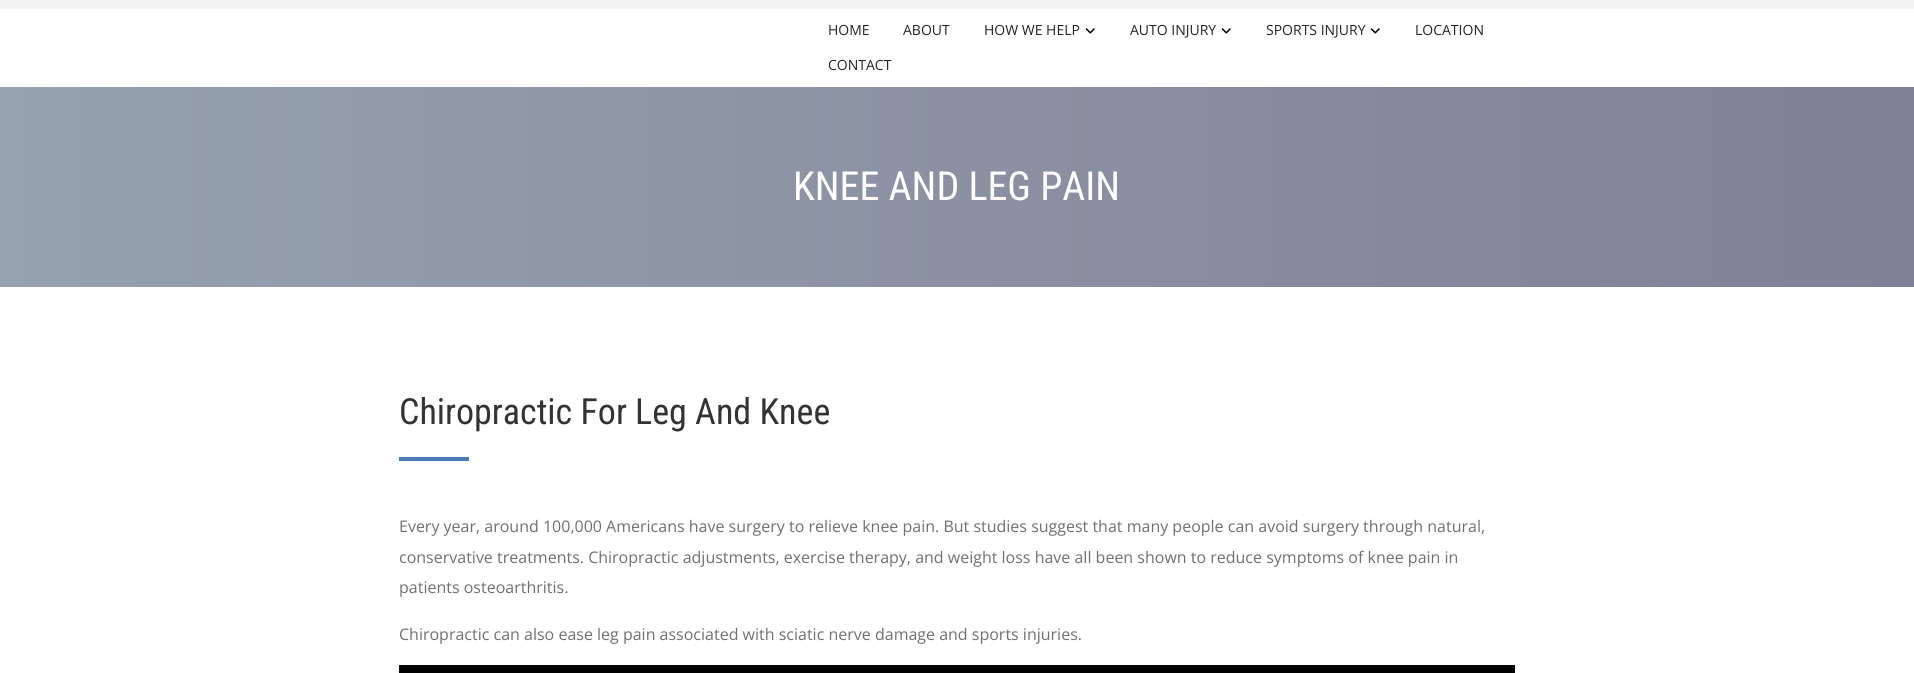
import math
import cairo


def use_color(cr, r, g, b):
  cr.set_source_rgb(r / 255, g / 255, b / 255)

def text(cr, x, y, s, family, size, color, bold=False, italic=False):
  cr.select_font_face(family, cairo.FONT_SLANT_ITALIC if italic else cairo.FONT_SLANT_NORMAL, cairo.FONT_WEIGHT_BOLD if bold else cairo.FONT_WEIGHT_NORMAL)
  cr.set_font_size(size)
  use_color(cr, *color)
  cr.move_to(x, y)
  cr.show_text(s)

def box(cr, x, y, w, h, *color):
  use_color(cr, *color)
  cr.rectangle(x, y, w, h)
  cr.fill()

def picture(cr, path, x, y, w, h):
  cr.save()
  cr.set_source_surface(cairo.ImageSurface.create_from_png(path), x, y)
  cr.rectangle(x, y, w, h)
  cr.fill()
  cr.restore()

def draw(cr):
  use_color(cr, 255, 255, 255)
  cr.paint()
  box(cr, 0, 0, 1914, 9, 244, 244, 244)
  picture(cr, "img_01.png", 1085, 28, 10, 6)
  picture(cr, "img_01.png", 1221, 28, 10, 6)
  picture(cr, "img_01.png", 1370, 28, 10, 6)
  gradient = cairo.LinearGradient(0, 187, 1914, 187)
  gradient.add_color_stop_rgba(0, 0.588, 0.635, 0.682, 1)
  gradient.add_color_stop_rgba(1, 0.502, 0.502, 0.588, 1)
  cr.set_source(gradient)
  cr.rectangle(0, 87, 1914, 200)
  cr.fill()
  box(cr, 399, 457, 70, 4, 74, 124, 182)
  box(cr, 399, 665, 1116, 8, 0, 0, 0)
  text(cr, 828, 35, "HOME", "Open Sans", 14, (35, 35, 35))
  text(cr, 903, 35, "ABOUT", "Open Sans", 14, (35, 35, 35))
  text(cr, 984, 35, "HOW WE HELP", "Open Sans", 14, (35, 35, 35))
  text(cr, 1130, 35, "AUTO INJURY", "Open Sans", 14, (35, 35, 35))
  text(cr, 1266, 35, "SPORTS INJURY", "Open Sans", 14, (35, 35, 35))
  text(cr, 1415, 35, "LOCATION", "Open Sans", 14, (35, 35, 35))
  text(cr, 828, 70, "CONTACT", "Open Sans", 14, (35, 35, 35))
  text(cr, 793, 200, "KNEE AND LEG PAIN", "Roboto Condensed", 40, (255, 255, 255))
  text(cr, 399, 424, "Chiropractic For Leg And Knee", "Roboto Condensed", 36, (51, 51, 51))
  text(cr, 399, 532, "Every year, around 100,000 Americans have surgery to relieve knee pain. But studies suggest that many people can avoid surgery through natural,", "Open Sans", 16, (112, 112, 112))
  text(cr, 399, 563, "conservative treatments. Chiropractic adjustments, exercise therapy, and weight loss have all been shown to reduce symptoms of knee pain in", "Open Sans", 16, (112, 112, 112))
  text(cr, 399, 593, "patients osteoarthritis.", "Open Sans", 16, (112, 112, 112))
  text(cr, 399, 640, "Chiropractic can also ease leg pain associated with sciatic nerve damage and sports injuries.", "Open Sans", 16, (112, 112, 112))


surface = cairo.ImageSurface(cairo.FORMAT_RGB24, 1914, 673)
cr = cairo.Context(surface)
options = cairo.FontOptions()
options.set_hint_metrics(cairo.HINT_METRICS_OFF)
options.set_hint_style(cairo.HINT_STYLE_NONE)
cr.set_font_options(options)
cr.set_miter_limit(4)
draw(cr)
surface.write_to_png("out.png")
